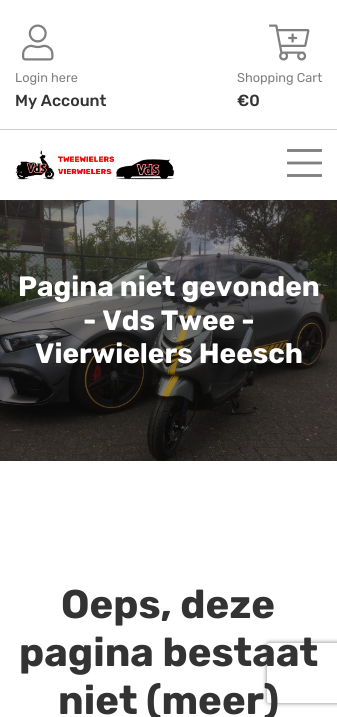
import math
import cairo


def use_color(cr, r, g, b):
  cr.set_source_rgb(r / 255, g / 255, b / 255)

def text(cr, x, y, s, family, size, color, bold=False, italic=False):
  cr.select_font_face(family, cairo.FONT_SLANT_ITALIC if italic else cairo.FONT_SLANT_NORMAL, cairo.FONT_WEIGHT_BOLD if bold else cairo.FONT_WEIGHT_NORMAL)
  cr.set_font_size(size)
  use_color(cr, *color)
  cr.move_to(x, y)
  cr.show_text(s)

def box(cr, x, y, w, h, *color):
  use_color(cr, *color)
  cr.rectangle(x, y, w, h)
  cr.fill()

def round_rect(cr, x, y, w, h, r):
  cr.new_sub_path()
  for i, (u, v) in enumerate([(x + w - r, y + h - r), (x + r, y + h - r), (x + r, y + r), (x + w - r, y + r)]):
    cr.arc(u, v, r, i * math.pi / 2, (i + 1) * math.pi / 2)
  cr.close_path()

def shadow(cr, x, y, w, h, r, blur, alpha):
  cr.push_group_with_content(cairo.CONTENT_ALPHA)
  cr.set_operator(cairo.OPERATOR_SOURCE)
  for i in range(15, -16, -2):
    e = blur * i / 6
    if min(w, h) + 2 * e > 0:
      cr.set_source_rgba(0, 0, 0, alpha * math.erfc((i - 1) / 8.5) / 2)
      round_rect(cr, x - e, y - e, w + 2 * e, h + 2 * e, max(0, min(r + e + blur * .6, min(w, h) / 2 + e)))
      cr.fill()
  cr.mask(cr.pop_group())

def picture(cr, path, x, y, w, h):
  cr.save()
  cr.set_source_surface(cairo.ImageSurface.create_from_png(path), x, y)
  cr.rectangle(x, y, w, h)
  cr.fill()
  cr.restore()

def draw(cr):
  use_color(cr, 255, 255, 255)
  cr.paint()
  box(cr, 0, 129, 337, 1, 204, 204, 204)
  picture(cr, "img_01.png", 22, 24, 32, 37)
  picture(cr, "img_02.png", 269, 24, 41, 37)
  picture(cr, "img_03.png", 15, 150, 160, 30)
  picture(cr, "img_04.png", 287, 149, 35, 28)
  box(cr, 0, 200, 337, 261, 0, 0, 0)
  picture(cr, "img_05.png", 0, 200, 337, 261)
  cr.save()
  cr.set_fill_rule(cairo.FILL_RULE_EVEN_ODD)
  cr.new_path()
  cr.move_to(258, 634)
  cr.line_to(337, 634)
  cr.line_to(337, 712)
  cr.line_to(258, 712)
  cr.close_path()
  cr.move_to(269, 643)
  cr.line_to(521, 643)
  cr.curve_to(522, 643, 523, 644, 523, 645)
  cr.line_to(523, 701)
  cr.curve_to(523, 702, 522, 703, 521, 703)
  cr.line_to(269, 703)
  cr.curve_to(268, 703, 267, 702, 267, 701)
  cr.line_to(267, 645)
  cr.curve_to(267, 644, 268, 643, 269, 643)
  cr.close_path()
  cr.clip()
  use_color(cr, 128, 128, 128)
  shadow(cr, 267, 643, 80, 60, 2, 2.5, 1)
  cr.restore()
  text(cr, 15, 82, "Login here", "Rubik", 12.75, (128, 128, 128))
  text(cr, 15, 106, "My Account", "Rubik Light", 16, (51, 51, 51))
  text(cr, 237, 82, "Shopping Cart", "Rubik", 12.75, (128, 128, 128))
  text(cr, 237, 106, "€0", "Rubik Light", 16, (51, 51, 51))
  text(cr, 18, 296, "Pagina niet gevonden", "Rubik", 28, (255, 255, 255), bold=True)
  text(cr, 83, 330, "- Vds Twee -", "Rubik", 28, (255, 255, 255), bold=True)
  text(cr, 35, 363, "Vierwielers Heesch", "Rubik", 28, (255, 255, 255), bold=True)
  text(cr, 61, 618, "Oeps, deze", "Rubik", 40, (51, 51, 51), bold=True)
  text(cr, 19, 666, "pagina bestaat", "Rubik", 40, (51, 51, 51), bold=True)
  text(cr, 58, 714, "niet (meer)", "Rubik", 40, (51, 51, 51), bold=True)


surface = cairo.ImageSurface(cairo.FORMAT_RGB24, 337, 717)
cr = cairo.Context(surface)
options = cairo.FontOptions()
options.set_hint_metrics(cairo.HINT_METRICS_OFF)
options.set_hint_style(cairo.HINT_STYLE_NONE)
cr.set_font_options(options)
cr.set_miter_limit(4)
draw(cr)
surface.write_to_png("out.png")
